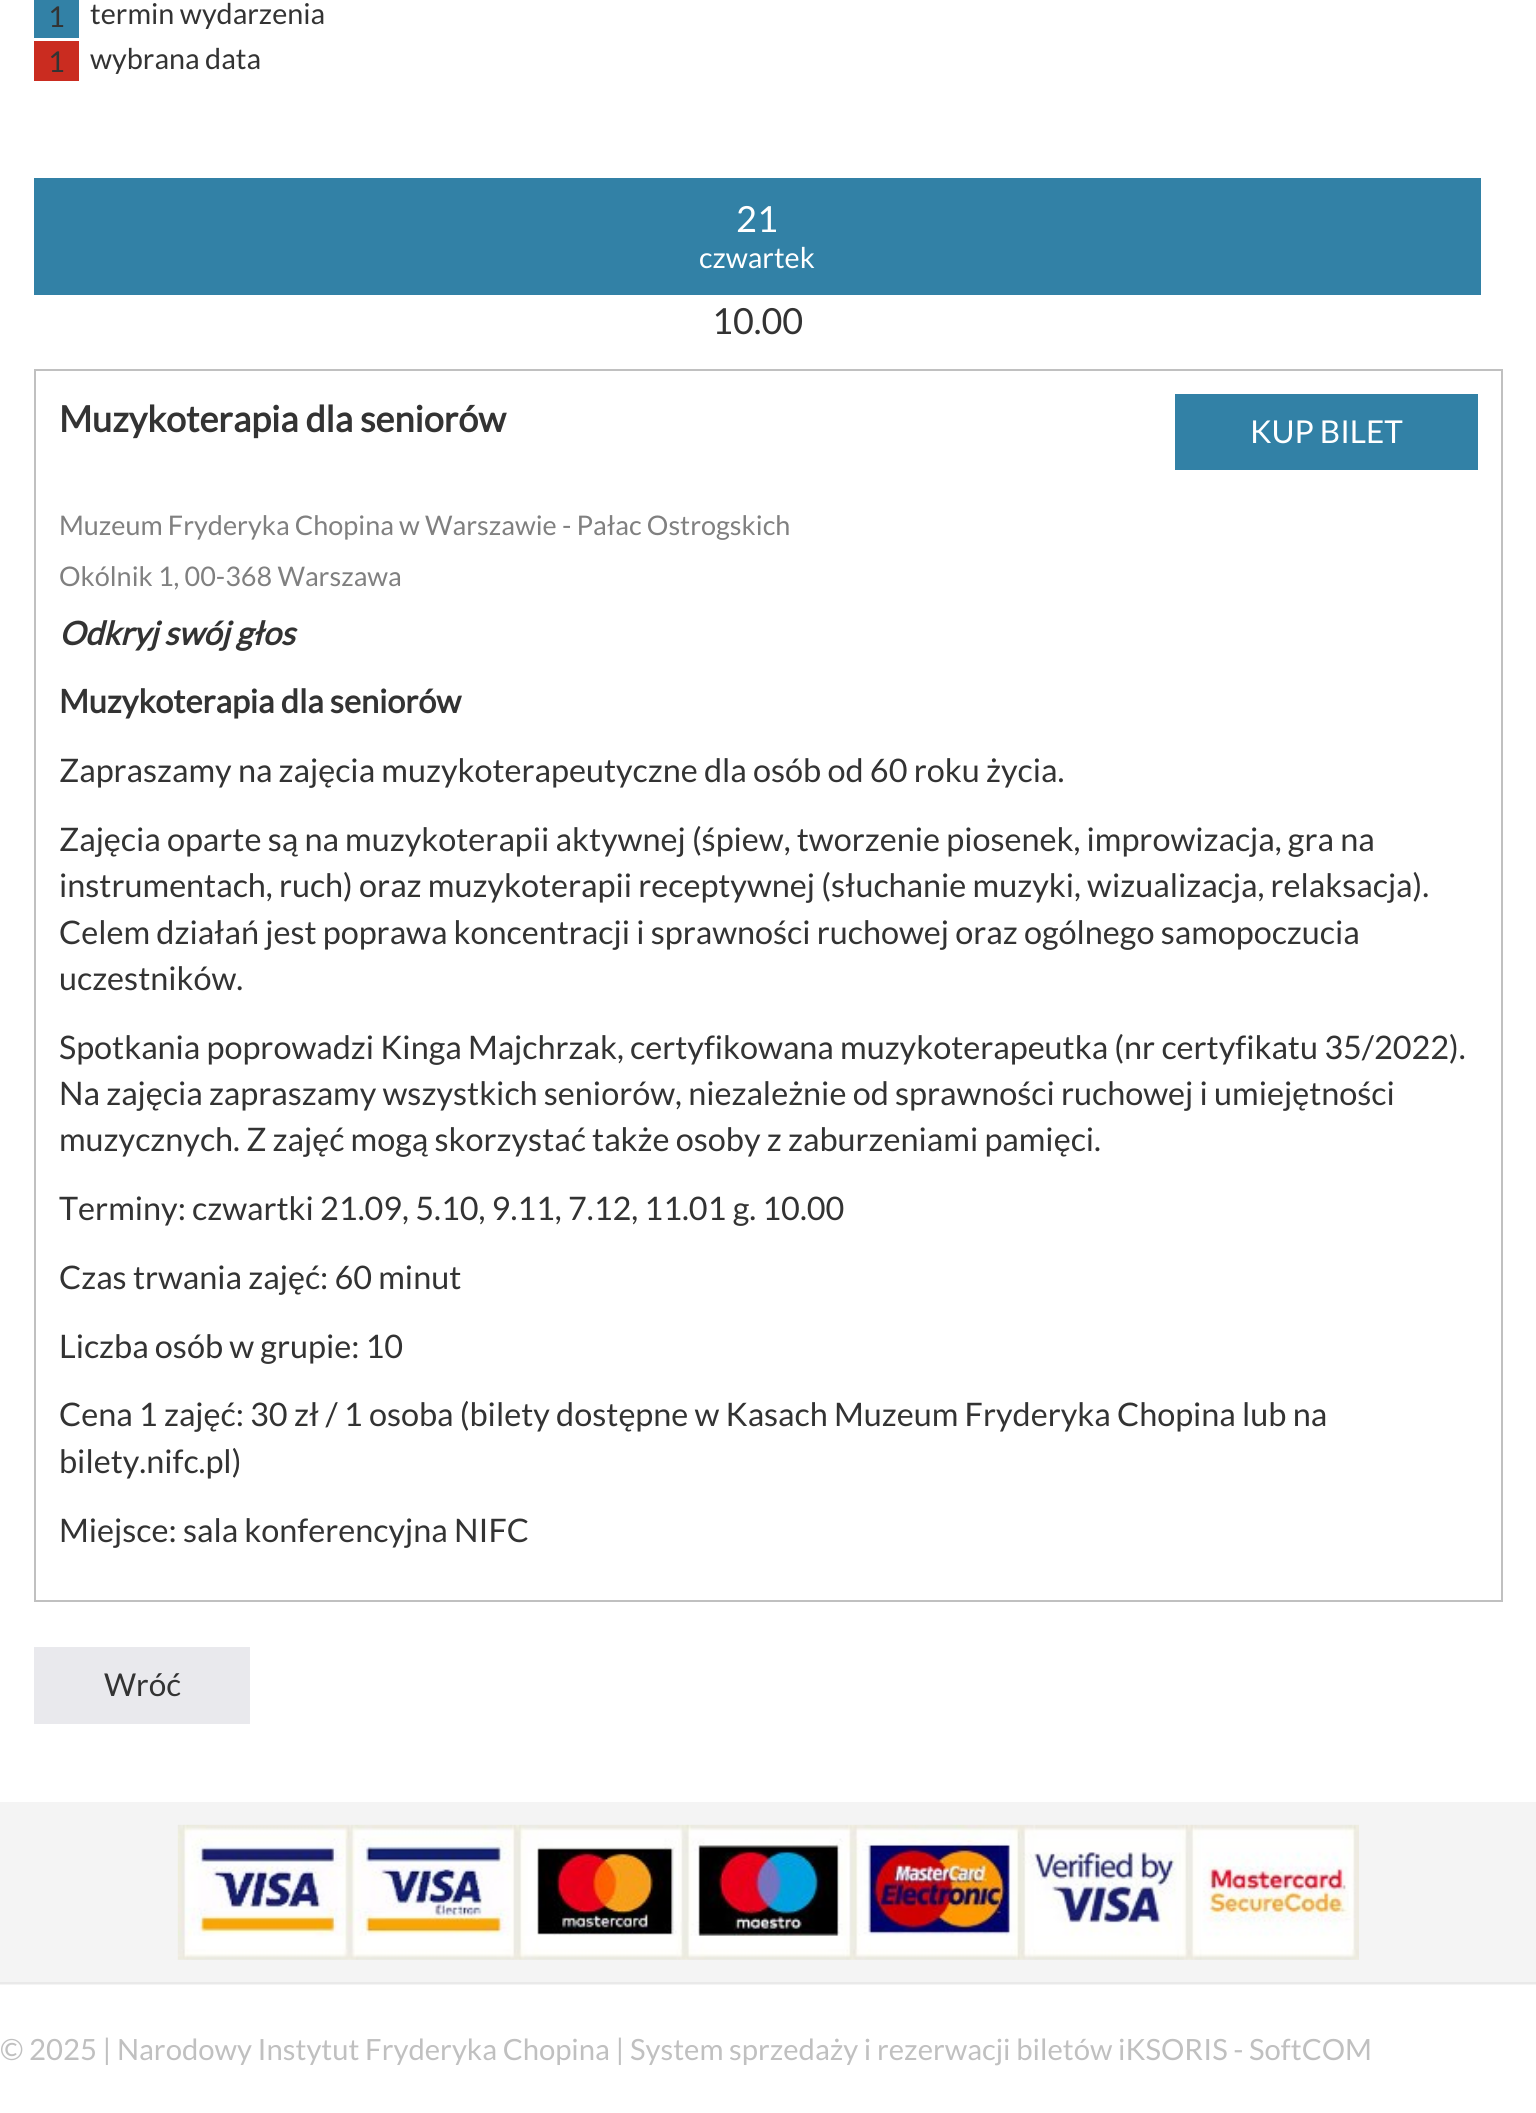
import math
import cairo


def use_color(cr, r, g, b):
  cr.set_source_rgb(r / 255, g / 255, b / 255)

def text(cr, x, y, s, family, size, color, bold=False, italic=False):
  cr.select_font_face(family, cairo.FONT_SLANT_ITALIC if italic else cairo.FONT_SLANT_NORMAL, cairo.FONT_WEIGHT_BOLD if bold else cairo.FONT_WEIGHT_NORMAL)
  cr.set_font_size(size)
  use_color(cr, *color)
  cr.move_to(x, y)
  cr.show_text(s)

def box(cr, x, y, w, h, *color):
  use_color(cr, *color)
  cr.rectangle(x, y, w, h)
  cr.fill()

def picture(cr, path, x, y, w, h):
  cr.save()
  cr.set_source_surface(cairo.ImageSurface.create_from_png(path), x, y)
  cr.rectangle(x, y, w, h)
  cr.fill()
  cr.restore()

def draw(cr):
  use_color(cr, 255, 255, 255)
  cr.paint()
  box(cr, 34, 0, 45, 38, 50, 129, 166)
  box(cr, 34, 41, 45, 40, 202, 44, 32)
  box(cr, 34, 178, 1447, 117, 50, 129, 166)
  cr.rectangle(35, 370, 1467, 1231)
  use_color(cr, 192, 192, 192)
  cr.stroke()
  box(cr, 1175, 394, 303, 76, 50, 129, 166)
  box(cr, 34, 1647, 216, 77, 233, 233, 237)
  box(cr, 0, 1802, 1536, 183, 244, 244, 244)
  box(cr, 0, 1982, 1536, 2, 233, 233, 233)
  picture(cr, "img_01.png", 177, 1824, 1182, 136)
  text(cr, 48, 27, "1", "Lato", 28.75, (51, 51, 51))
  text(cr, 90, 24, "termin wydarzenia", "Lato", 28.75, (51, 51, 51))
  text(cr, 48, 72, "1", "Lato", 28.75, (51, 51, 51))
  text(cr, 90, 69, "wybrana data", "Lato", 28.75, (51, 51, 51))
  text(cr, 736, 232, "21", "Lato", 36, (255, 255, 255))
  text(cr, 699, 268, "czwartek", "Lato", 28.75, (255, 255, 255))
  text(cr, 712, 334, "10.00", "Lato", 36, (51, 51, 51))
  text(cr, 59, 432, "Muzykoterapia dla seniorów", "Lato", 36, (51, 51, 51), bold=True)
  text(cr, 1250, 443, "KUP BILET", "Lato", 31.5, (255, 255, 255))
  text(cr, 59, 535, "Muzeum Fryderyka Chopina w Warszawie - Pałac Ostrogskich", "Lato", 27, (128, 128, 128))
  text(cr, 59, 586, "Okólnik 1, 00-368 Warszawa", "Lato", 27, (128, 128, 128))
  text(cr, 59, 645, "Odkryj swój głos", "Lato", 32.4, (51, 51, 51), bold=True, italic=True)
  text(cr, 59, 713, "Muzykoterapia dla seniorów", "Lato", 32.4, (51, 51, 51), bold=True)
  text(cr, 59, 782, "Zapraszamy na zajęcia muzykoterapeutyczne dla osób od 60 roku życia.", "Lato", 32.4, (51, 51, 51))
  text(cr, 59, 851, "Zajęcia oparte są na muzykoterapii aktywnej (śpiew, tworzenie piosenek, improwizacja, gra na", "Lato", 32.4, (51, 51, 51))
  text(cr, 59, 897, "instrumentach, ruch) oraz muzykoterapii receptywnej (słuchanie muzyki, wizualizacja, relaksacja).", "Lato", 32.4, (51, 51, 51))
  text(cr, 59, 944, "Celem działań jest poprawa koncentracji i sprawności ruchowej oraz ogólnego samopoczucia", "Lato", 32.4, (51, 51, 51))
  text(cr, 59, 990, "uczestników.", "Lato", 32.4, (51, 51, 51))
  text(cr, 59, 1059, "Spotkania poprowadzi Kinga Majchrzak, certyfikowana muzykoterapeutka (nr certyfikatu 35/2022).", "Lato", 32.4, (51, 51, 51))
  text(cr, 59, 1105, "Na zajęcia zapraszamy wszystkich seniorów, niezależnie od sprawności ruchowej i umiejętności", "Lato", 32.4, (51, 51, 51))
  text(cr, 59, 1151, "muzycznych. Z zajęć mogą skorzystać także osoby z zaburzeniami pamięci.", "Lato", 32.4, (51, 51, 51))
  text(cr, 59, 1220, "Terminy: czwartki 21.09, 5.10, 9.11, 7.12, 11.01 g. 10.00", "Lato", 32.4, (51, 51, 51))
  text(cr, 59, 1289, "Czas trwania zajęć: 60 minut", "Lato", 32.4, (51, 51, 51))
  text(cr, 59, 1358, "Liczba osób w grupie: 10", "Lato", 32.4, (51, 51, 51))
  text(cr, 59, 1426, "Cena 1 zajęć: 30 zł / 1 osoba (bilety dostępne w Kasach Muzeum Fryderyka Chopina lub na", "Lato", 32.4, (51, 51, 51))
  text(cr, 59, 1473, "bilety.nifc.pl)", "Lato", 32.4, (51, 51, 51))
  text(cr, 59, 1542, "Miejsce: sala konferencyjna NIFC", "Lato", 32.4, (51, 51, 51))
  text(cr, 104, 1696, "Wróć", "Lato", 31.5, (51, 51, 51))
  text(cr, 0, 2060, "© 2025 | Narodowy Instytut Fryderyka Chopina | System sprzedaży i rezerwacji biletów iKSORIS - SoftCOM", "Lato", 29.25, (192, 192, 192))


surface = cairo.ImageSurface(cairo.FORMAT_RGB24, 1536, 2113)
cr = cairo.Context(surface)
options = cairo.FontOptions()
options.set_hint_metrics(cairo.HINT_METRICS_OFF)
options.set_hint_style(cairo.HINT_STYLE_NONE)
cr.set_font_options(options)
cr.set_miter_limit(4)
draw(cr)
surface.write_to_png("out.png")
